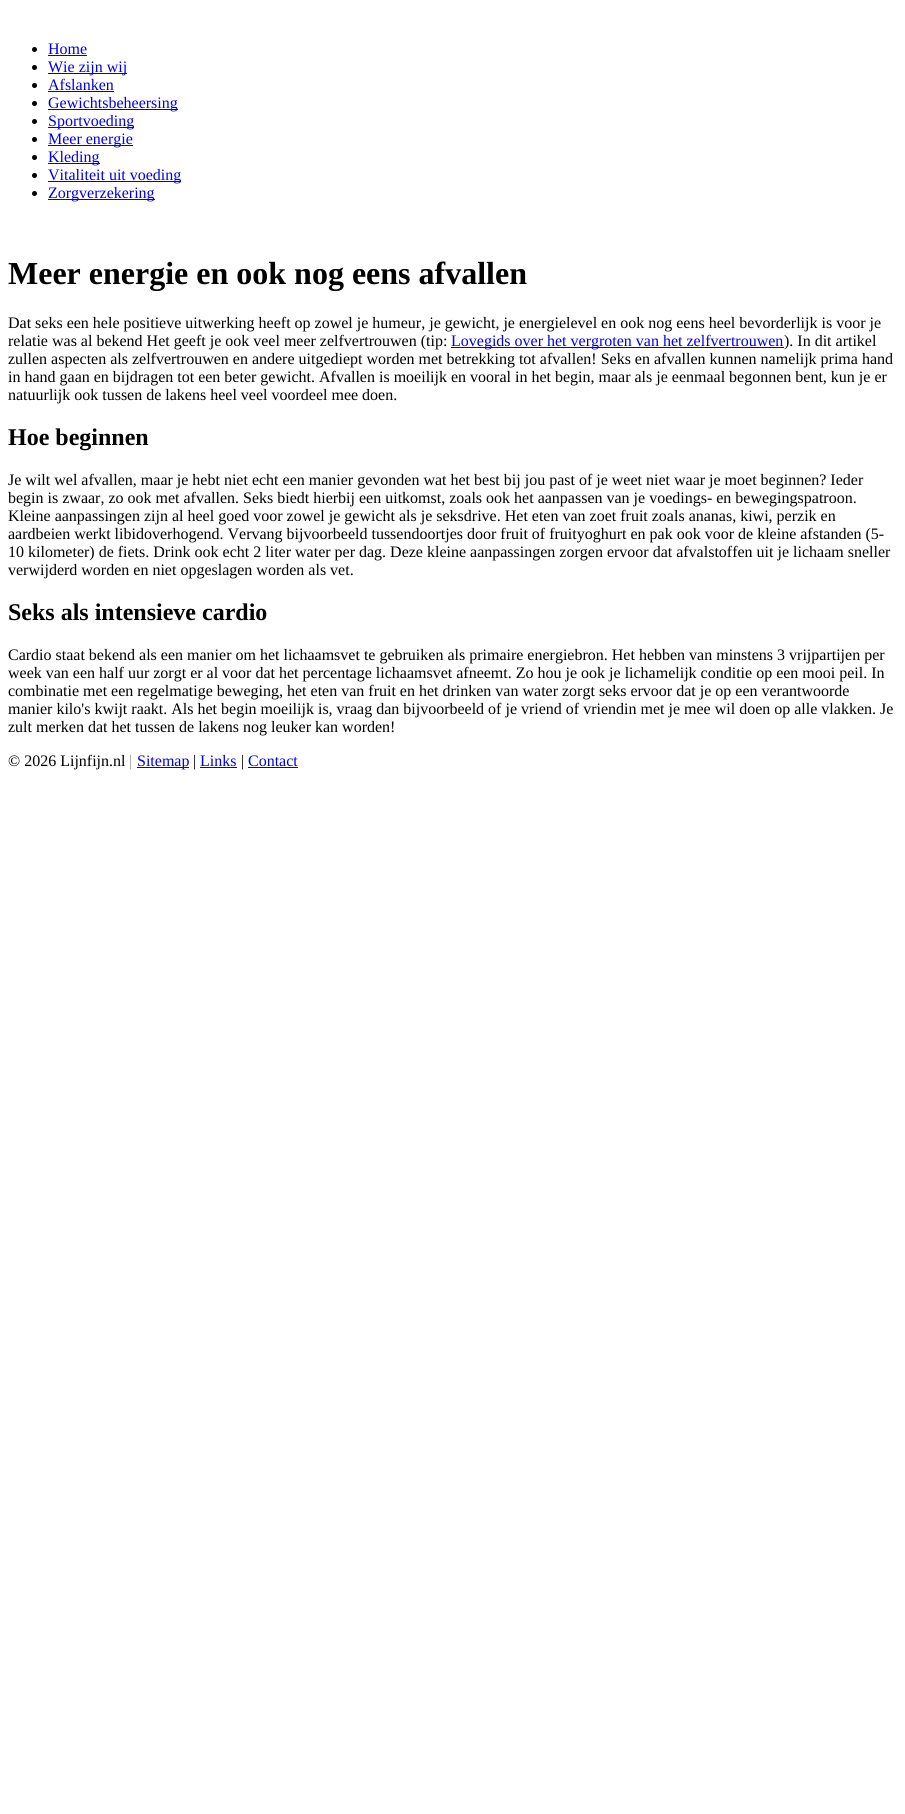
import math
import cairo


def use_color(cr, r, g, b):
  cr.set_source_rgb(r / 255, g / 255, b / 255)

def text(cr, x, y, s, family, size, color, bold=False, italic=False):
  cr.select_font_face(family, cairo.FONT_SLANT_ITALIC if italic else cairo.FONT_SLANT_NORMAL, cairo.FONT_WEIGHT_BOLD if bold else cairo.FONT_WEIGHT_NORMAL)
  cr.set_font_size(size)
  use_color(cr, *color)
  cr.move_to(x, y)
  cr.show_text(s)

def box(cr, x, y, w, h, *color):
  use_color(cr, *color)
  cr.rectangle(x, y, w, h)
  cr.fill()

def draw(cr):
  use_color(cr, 255, 255, 255)
  cr.paint()
  use_color(cr, 0, 0, 0)
  cr.arc(34.5, 49.5, 2.5, 0, 2 * math.pi)
  cr.fill()
  box(cr, 48, 55, 39, 1, 0, 0, 238)
  use_color(cr, 0, 0, 0)
  cr.arc(34.5, 67.5, 2.5, 0, 2 * math.pi)
  cr.fill()
  box(cr, 48, 73, 79, 1, 0, 0, 238)
  use_color(cr, 0, 0, 0)
  cr.arc(34.5, 85.5, 2.5, 0, 2 * math.pi)
  cr.fill()
  box(cr, 48, 91, 66, 1, 0, 0, 238)
  use_color(cr, 0, 0, 0)
  cr.arc(34.5, 103.5, 2.5, 0, 2 * math.pi)
  cr.fill()
  box(cr, 48, 109, 130, 1, 0, 0, 238)
  use_color(cr, 0, 0, 0)
  cr.arc(34.5, 121.5, 2.5, 0, 2 * math.pi)
  cr.fill()
  box(cr, 48, 127, 86, 1, 0, 0, 238)
  use_color(cr, 0, 0, 0)
  cr.arc(34.5, 139.5, 2.5, 0, 2 * math.pi)
  cr.fill()
  box(cr, 48, 145, 85, 1, 0, 0, 238)
  use_color(cr, 0, 0, 0)
  cr.arc(34.5, 157.5, 2.5, 0, 2 * math.pi)
  cr.fill()
  box(cr, 48, 163, 52, 1, 0, 0, 238)
  use_color(cr, 0, 0, 0)
  cr.arc(34.5, 175.5, 2.5, 0, 2 * math.pi)
  cr.fill()
  box(cr, 48, 181, 133, 1, 0, 0, 238)
  use_color(cr, 0, 0, 0)
  cr.arc(34.5, 193.5, 2.5, 0, 2 * math.pi)
  cr.fill()
  box(cr, 48, 199, 107, 1, 0, 0, 238)
  box(cr, 451, 347, 333, 1, 0, 0, 238)
  box(cr, 137, 767, 52, 1, 0, 0, 238)
  box(cr, 200, 767, 37, 1, 0, 0, 238)
  box(cr, 248, 767, 50, 1, 0, 0, 238)
  text(cr, 48, 54, "Home", "Liberation Serif", 16, (0, 0, 238))
  text(cr, 48, 72, "Wie zijn wij", "Liberation Serif", 16, (0, 0, 238))
  text(cr, 48, 90, "Afslanken", "Liberation Serif", 16, (0, 0, 238))
  text(cr, 48, 108, "Gewichtsbeheersing", "Liberation Serif", 16, (0, 0, 238))
  text(cr, 48, 126, "Sportvoeding", "Liberation Serif", 16, (0, 0, 238))
  text(cr, 48, 144, "Meer energie", "Liberation Serif", 16, (0, 0, 238))
  text(cr, 48, 162, "Kleding", "Liberation Serif", 16, (0, 0, 238))
  text(cr, 48, 180, "Vitaliteit uit voeding", "Liberation Serif", 16, (0, 0, 238))
  text(cr, 48, 198, "Zorgverzekering", "Liberation Serif", 16, (0, 0, 238))
  text(cr, 8, 284, "Meer energie en ook nog eens afvallen", "Liberation Serif", 32, (0, 0, 0), bold=True)
  text(cr, 8, 328, "Dat seks een hele positieve uitwerking heeft op zowel je humeur, je gewicht, je energielevel en ook nog eens heel bevorderlijk is voor je", "Liberation Serif", 16, (0, 0, 0))
  text(cr, 8, 346, "relatie was al bekend Het geeft je ook veel meer zelfvertrouwen (tip:", "Liberation Serif", 16, (0, 0, 0))
  text(cr, 451, 346, "Lovegids over het vergroten van het zelfvertrouwen", "Liberation Serif", 16, (0, 0, 238))
  text(cr, 784, 346, "). In dit artikel", "Liberation Serif", 16, (0, 0, 0))
  text(cr, 8, 364, "zullen aspecten als zelfvertrouwen en andere uitgediept worden met betrekking tot afvallen! Seks en afvallen kunnen namelijk prima hand", "Liberation Serif", 16, (0, 0, 0))
  text(cr, 8, 382, "in hand gaan en bijdragen tot een beter gewicht. Afvallen is moeilijk en vooral in het begin, maar als je eenmaal begonnen bent, kun je er", "Liberation Serif", 16, (0, 0, 0))
  text(cr, 8, 400, "natuurlijk ook tussen de lakens heel veel voordeel mee doen.", "Liberation Serif", 16, (0, 0, 0))
  text(cr, 8, 445, "Hoe beginnen", "Liberation Serif", 24, (0, 0, 0), bold=True)
  text(cr, 8, 485, "Je wilt wel afvallen, maar je hebt niet echt een manier gevonden wat het best bij jou past of je weet niet waar je moet beginnen? Ieder", "Liberation Serif", 16, (0, 0, 0))
  text(cr, 8, 503, "begin is zwaar, zo ook met afvallen. Seks biedt hierbij een uitkomst, zoals ook het aanpassen van je voedings- en bewegingspatroon.", "Liberation Serif", 16, (0, 0, 0))
  text(cr, 8, 521, "Kleine aanpassingen zijn al heel goed voor zowel je gewicht als je seksdrive. Het eten van zoet fruit zoals ananas, kiwi, perzik en", "Liberation Serif", 16, (0, 0, 0))
  text(cr, 8, 539, "aardbeien werkt libidoverhogend. Vervang bijvoorbeeld tussendoortjes door fruit of fruityoghurt en pak ook voor de kleine afstanden (5-", "Liberation Serif", 16, (0, 0, 0))
  text(cr, 8, 557, "10 kilometer) de fiets. Drink ook echt 2 liter water per dag. Deze kleine aanpassingen zorgen ervoor dat afvalstoffen uit je lichaam sneller", "Liberation Serif", 16, (0, 0, 0))
  text(cr, 8, 575, "verwijderd worden en niet opgeslagen worden als vet.", "Liberation Serif", 16, (0, 0, 0))
  text(cr, 8, 620, "Seks als intensieve cardio", "Liberation Serif", 24, (0, 0, 0), bold=True)
  text(cr, 8, 660, "Cardio staat bekend als een manier om het lichaamsvet te gebruiken als primaire energiebron. Het hebben van minstens 3 vrijpartijen per", "Liberation Serif", 16, (0, 0, 0))
  text(cr, 8, 678, "week van een half uur zorgt er al voor dat het percentage lichaamsvet afneemt. Zo hou je ook je lichamelijk conditie op een mooi peil. In", "Liberation Serif", 16, (0, 0, 0))
  text(cr, 8, 696, "combinatie met een regelmatige beweging, het eten van fruit en het drinken van water zorgt seks ervoor dat je op een verantwoorde", "Liberation Serif", 16, (0, 0, 0))
  text(cr, 8, 714, "manier kilo's kwijt raakt. Als het begin moeilijk is, vraag dan bijvoorbeeld of je vriend of vriendin met je mee wil doen op alle vlakken. Je", "Liberation Serif", 16, (0, 0, 0))
  text(cr, 8, 732, "zult merken dat het tussen de lakens nog leuker kan worden!", "Liberation Serif", 16, (0, 0, 0))
  text(cr, 8, 766, "© 2026 Lijnfijn.nl |", "Liberation Serif", 16, (0, 0, 0))
  text(cr, 137, 766, "Sitemap", "Liberation Serif", 16, (0, 0, 238))
  text(cr, 193, 766, "|", "Liberation Serif", 16, (0, 0, 0))
  text(cr, 200, 766, "Links", "Liberation Serif", 16, (0, 0, 238))
  text(cr, 241, 766, "|", "Liberation Serif", 16, (0, 0, 0))
  text(cr, 248, 766, "Contact", "Liberation Serif", 16, (0, 0, 238))


surface = cairo.ImageSurface(cairo.FORMAT_RGB24, 905, 1814)
cr = cairo.Context(surface)
options = cairo.FontOptions()
options.set_hint_metrics(cairo.HINT_METRICS_OFF)
options.set_hint_style(cairo.HINT_STYLE_NONE)
cr.set_font_options(options)
cr.set_miter_limit(4)
draw(cr)
surface.write_to_png("out.png")
